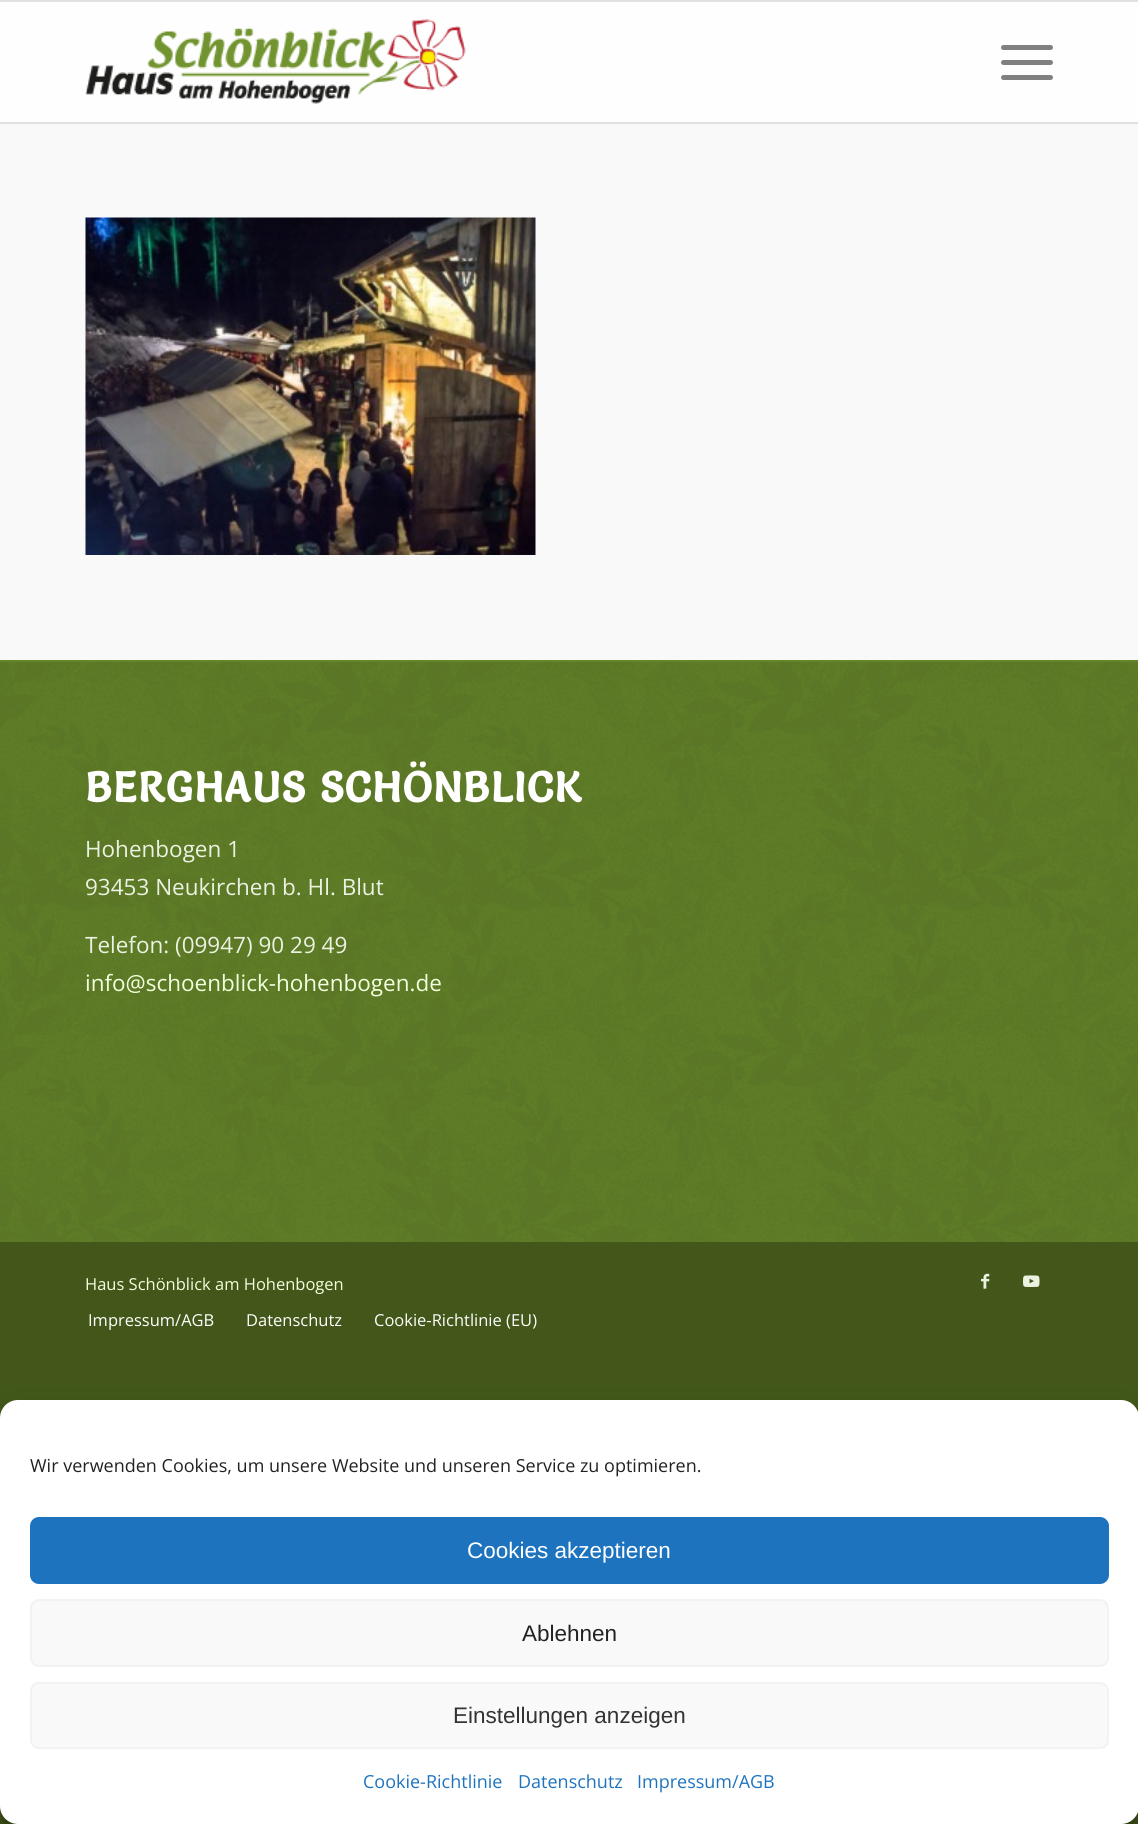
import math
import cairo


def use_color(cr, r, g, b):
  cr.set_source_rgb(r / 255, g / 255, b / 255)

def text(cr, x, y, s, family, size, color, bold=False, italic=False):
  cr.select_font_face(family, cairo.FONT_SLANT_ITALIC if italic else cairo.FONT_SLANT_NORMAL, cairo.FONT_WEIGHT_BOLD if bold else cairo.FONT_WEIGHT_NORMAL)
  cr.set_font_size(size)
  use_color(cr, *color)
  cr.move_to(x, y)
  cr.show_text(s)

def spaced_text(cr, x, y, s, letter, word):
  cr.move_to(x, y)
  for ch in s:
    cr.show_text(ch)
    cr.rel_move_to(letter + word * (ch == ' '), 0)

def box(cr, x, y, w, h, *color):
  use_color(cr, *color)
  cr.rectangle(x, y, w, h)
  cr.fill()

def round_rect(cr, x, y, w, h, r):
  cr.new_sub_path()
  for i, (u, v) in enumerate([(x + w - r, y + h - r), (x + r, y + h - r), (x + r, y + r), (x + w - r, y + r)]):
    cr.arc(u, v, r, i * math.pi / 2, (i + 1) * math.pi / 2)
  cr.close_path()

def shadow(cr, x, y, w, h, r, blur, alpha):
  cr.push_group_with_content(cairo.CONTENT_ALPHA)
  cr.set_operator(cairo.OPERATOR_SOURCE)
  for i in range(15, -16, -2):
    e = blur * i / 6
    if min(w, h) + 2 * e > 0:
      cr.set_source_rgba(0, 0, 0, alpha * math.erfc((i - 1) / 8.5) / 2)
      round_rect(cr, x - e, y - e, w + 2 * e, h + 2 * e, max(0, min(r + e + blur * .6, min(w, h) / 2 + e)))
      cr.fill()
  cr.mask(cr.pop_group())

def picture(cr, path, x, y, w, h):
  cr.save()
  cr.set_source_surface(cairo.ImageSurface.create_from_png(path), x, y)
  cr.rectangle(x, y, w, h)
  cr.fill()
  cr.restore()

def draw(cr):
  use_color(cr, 66, 87, 25)
  cr.paint()
  box(cr, 0, 2, 1138, 120, 254, 254, 254)
  box(cr, 0, 0, 1138, 2, 225, 225, 225)
  box(cr, 0, 122, 1138, 2, 225, 225, 225)
  picture(cr, "img_01.png", 85, 19, 381, 85)
  use_color(cr, 128, 128, 128)
  round_rect(cr, 1001, 60, 52, 5, 2.5)
  cr.fill()
  round_rect(cr, 1001, 45, 52, 5, 2.5)
  cr.fill()
  round_rect(cr, 1001, 75, 52, 5, 2.5)
  cr.fill()
  box(cr, 0, 124, 1138, 536, 249, 249, 249)
  picture(cr, "img_02.png", 85, 217, 451, 338)
  box(cr, 0, 660, 1138, 582, 101, 133, 41)
  picture(cr, "img_03.png", 0, 662, 1138, 580)
  picture(cr, "img_04.png", 981, 1273, 9, 16)
  picture(cr, "img_05.png", 1023, 1275, 17, 12)
  use_color(cr, 0, 0, 0)
  shadow(cr, 0, 1409, 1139, 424, 18, 4.5, 0.23)
  shadow(cr, 0, 1415, 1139, 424, 18, 15, 0.19)
  use_color(cr, 255, 255, 255)
  round_rect(cr, 0, 1400, 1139, 424, 18)
  cr.fill()
  use_color(cr, 30, 115, 190)
  round_rect(cr, 31, 1518, 1077, 65, 8)
  cr.fill_preserve()
  cr.stroke()
  use_color(cr, 249, 249, 249)
  round_rect(cr, 31, 1600, 1077, 66, 8)
  cr.fill_preserve()
  use_color(cr, 242, 242, 242)
  cr.stroke()
  use_color(cr, 249, 249, 249)
  round_rect(cr, 31, 1683, 1077, 65, 8)
  cr.fill_preserve()
  use_color(cr, 242, 242, 242)
  cr.stroke()
  cr.select_font_face("Salsa", cairo.FONT_SLANT_NORMAL, cairo.FONT_WEIGHT_BOLD)
  cr.set_font_size(42)
  use_color(cr, 255, 255, 255)
  spaced_text(cr, 85, 802, "BERGHAUS SCHÖNBLICK", 1.5, 0)
  text(cr, 85, 857, "Hohenbogen 1", "Open Sans", 22.5, (236, 242, 225))
  text(cr, 85, 895, "93453 Neukirchen b. Hl. Blut", "Open Sans", 22.5, (236, 242, 225))
  text(cr, 85, 953, "Telefon: (09947) 90 29 49", "Open Sans", 22.5, (236, 242, 225))
  text(cr, 85, 991, "info@schoenblick-hohenbogen.de", "Open Sans", 22.5, (243, 255, 222))
  text(cr, 85, 1290, "Haus Schönblick am Hohenbogen", "Open Sans", 16.5, (243, 255, 222))
  text(cr, 88, 1326, "Impressum/AGB", "Open Sans", 16.5, (255, 255, 255))
  text(cr, 246, 1326, "Datenschutz", "Open Sans", 16.5, (255, 255, 255))
  text(cr, 374, 1326, "Cookie-Richtlinie (EU)", "Open Sans", 16.5, (255, 255, 255))
  text(cr, 30, 1472, "Wir verwenden Cookies, um unsere Website und unseren Service zu optimieren.", "Open Sans", 18, (34, 34, 34))
  text(cr, 467, 1558, "Cookies akzeptieren", "Liberation Sans", 22.5, (255, 255, 255))
  text(cr, 522, 1641, "Ablehnen", "Liberation Sans", 22.5, (34, 34, 34))
  text(cr, 453, 1723, "Einstellungen anzeigen", "Liberation Sans", 22.5, (51, 51, 51))
  text(cr, 363, 1788, "Cookie-Richtlinie", "Open Sans", 18, (30, 115, 190))
  text(cr, 518, 1788, "Datenschutz", "Open Sans", 18, (30, 115, 190))
  text(cr, 637, 1788, "Impressum/AGB", "Open Sans", 18, (30, 115, 190))


surface = cairo.ImageSurface(cairo.FORMAT_RGB24, 1138, 1824)
cr = cairo.Context(surface)
options = cairo.FontOptions()
options.set_hint_metrics(cairo.HINT_METRICS_OFF)
options.set_hint_style(cairo.HINT_STYLE_NONE)
cr.set_font_options(options)
cr.set_miter_limit(4)
draw(cr)
surface.write_to_png("out.png")
